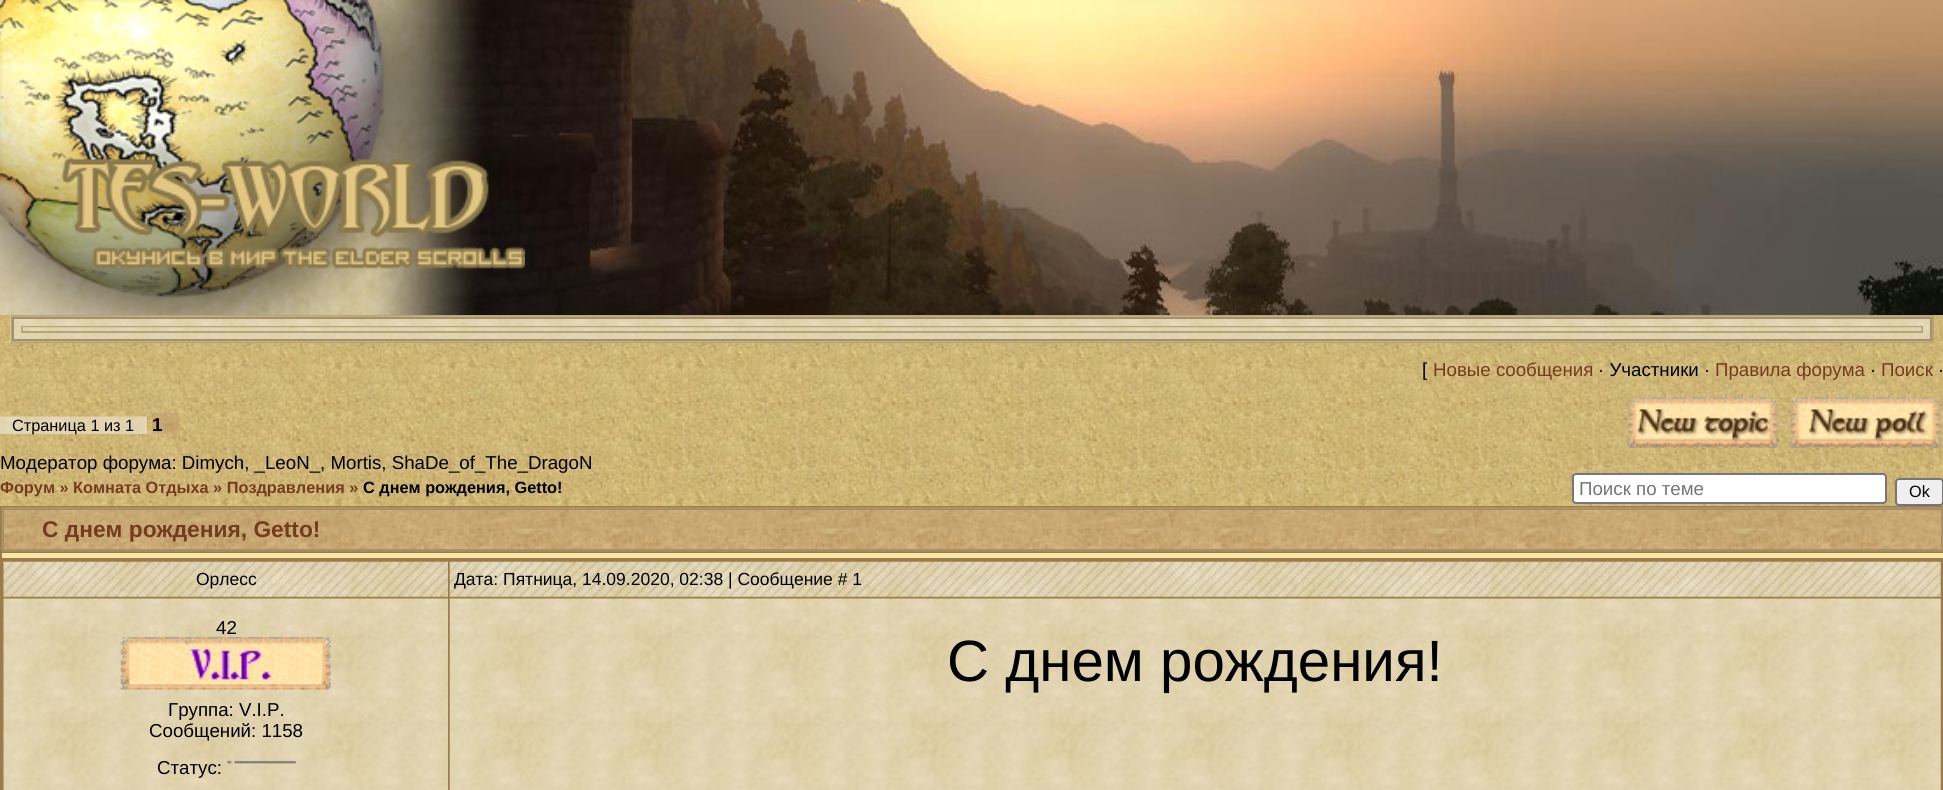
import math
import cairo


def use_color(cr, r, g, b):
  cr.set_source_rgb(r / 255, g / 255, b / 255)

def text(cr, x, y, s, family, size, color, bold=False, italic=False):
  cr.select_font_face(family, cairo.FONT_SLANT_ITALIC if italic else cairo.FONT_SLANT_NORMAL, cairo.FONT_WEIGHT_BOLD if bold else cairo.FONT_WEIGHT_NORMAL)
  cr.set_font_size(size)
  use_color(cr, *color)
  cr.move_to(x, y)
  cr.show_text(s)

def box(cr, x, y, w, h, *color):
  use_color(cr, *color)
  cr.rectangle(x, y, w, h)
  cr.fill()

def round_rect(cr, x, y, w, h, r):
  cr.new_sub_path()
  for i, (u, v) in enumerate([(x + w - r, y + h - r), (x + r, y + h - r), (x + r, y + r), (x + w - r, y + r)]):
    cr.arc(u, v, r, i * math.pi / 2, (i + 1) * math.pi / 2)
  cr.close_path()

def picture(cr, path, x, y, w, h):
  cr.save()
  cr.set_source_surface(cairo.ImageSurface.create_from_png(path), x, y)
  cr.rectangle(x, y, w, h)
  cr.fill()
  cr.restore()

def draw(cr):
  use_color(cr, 255, 255, 255)
  cr.paint()
  picture(cr, "img_01.png", 0, 315, 1943, 28)
  picture(cr, "img_02.png", 365, 0, 1578, 315)
  picture(cr, "img_03.png", 0, 0, 525, 315)
  picture(cr, "img_04.png", 10, 315, 1, 28)
  cr.rectangle(12, 316, 1921, 26)
  use_color(cr, 178, 165, 120)
  cr.stroke()
  picture(cr, "img_05.png", 12, 316, 1920, 26)
  cr.rectangle(13, 318, 1918, 22)
  use_color(cr, 167, 143, 106)
  cr.stroke()
  picture(cr, "img_06.png", 23, 325, 1895, 6)
  cr.rectangle(22, 327, 1900, 5)
  use_color(cr, 178, 165, 120)
  cr.stroke()
  picture(cr, "img_07.png", 22, 327, 1900, 4)
  picture(cr, "img_08.png", 0, 343, 1943, 163)
  picture(cr, "img_09.png", 0, 416, 147, 18)
  picture(cr, "img_10.png", 152, 413, 27, 21)
  picture(cr, "img_11.png", 1627, 395, 152, 53)
  picture(cr, "img_12.png", 1790, 395, 152, 53)
  use_color(cr, 255, 255, 255)
  round_rect(cr, 1573, 474, 313, 29, 3)
  cr.fill_preserve()
  use_color(cr, 118, 118, 118)
  cr.stroke()
  use_color(cr, 239, 239, 239)
  round_rect(cr, 1896, 479, 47, 26, 3)
  cr.fill_preserve()
  use_color(cr, 118, 118, 118)
  cr.stroke()
  box(cr, 0, 506, 1943, 284, 154, 124, 75)
  picture(cr, "img_13.png", 1, 507, 1942, 45)
  cr.rectangle(3, 509, 1939, 41)
  use_color(cr, 167, 143, 106)
  cr.stroke()
  box(cr, 2, 553, 1941, 5, 249, 231, 167)
  picture(cr, "img_14.png", 3, 561, 445, 36)
  picture(cr, "img_15.png", 449, 561, 1492, 36)
  picture(cr, "img_16.png", 3, 598, 445, 192)
  picture(cr, "img_17.png", 120, 637, 211, 53)
  picture(cr, "img_18.png", 227, 760, 69, 4)
  picture(cr, "img_19.png", 449, 598, 1492, 192)
  text(cr, 1422, 376, "[", "Liberation Sans", 18.7, (0, 0, 0))
  text(cr, 1433, 376, "Новые сообщения", "Liberation Sans", 18.7, (117, 59, 33))
  text(cr, 1598, 376, "· Участники ·", "Liberation Sans", 18.7, (0, 0, 0))
  text(cr, 1715, 376, "Правила форума", "Liberation Sans", 18.7, (117, 59, 33))
  text(cr, 1870, 376, "·", "Liberation Sans", 18.7, (0, 0, 0))
  text(cr, 1881, 376, "Поиск", "Liberation Sans", 18.7, (117, 59, 33))
  text(cr, 1938, 376, "·", "Liberation Sans", 18.7, (0, 0, 0))
  text(cr, 12, 431, "Страница 1 из 1", "Liberation Sans", 16.3, (0, 0, 0))
  text(cr, 152, 431, "1", "Liberation Sans", 18.7, (0, 0, 0), bold=True)
  text(cr, 0, 469, "Модератор форума: Dimych, _LeoN_, Mortis, ShaDe_of_The_DragoN", "Liberation Sans", 18.7, (0, 0, 0))
  text(cr, 0, 493, "Форум » Комната Отдыха » Поздравления »", "Liberation Sans", 16.3, (117, 59, 33), bold=True)
  text(cr, 363, 493, "С днем рождения, Getto!", "Liberation Sans", 16.3, (0, 0, 0), bold=True)
  text(cr, 1579, 495, "Поиск по теме", "Liberation Sans", 18.7, (117, 117, 117))
  text(cr, 1909, 497, "Ok", "Liberation Sans", 16.3, (0, 0, 0))
  text(cr, 42, 537, "С днем рождения, Getto!", "Liberation Sans", 22.75, (117, 59, 33), bold=True)
  text(cr, 196, 585, "Орлесс", "Liberation Sans", 17.5, (0, 0, 0))
  text(cr, 454, 585, "Дата: Пятница, 14.09.2020, 02:38 | Сообщение # 1", "Liberation Sans", 17.5, (0, 0, 0))
  text(cr, 216, 634, "42", "Liberation Sans", 18.7, (0, 0, 0))
  text(cr, 168, 716, "Группа: V.I.P.", "Liberation Sans", 18.7, (0, 0, 0))
  text(cr, 149, 737, "Сообщений: 1158", "Liberation Sans", 18.7, (0, 0, 0))
  text(cr, 157, 774, "Статус:", "Liberation Sans", 18.7, (0, 0, 0))
  text(cr, 947, 681, "С днем рождения!", "Liberation Sans", 58.25, (0, 0, 0))


surface = cairo.ImageSurface(cairo.FORMAT_RGB24, 1943, 790)
cr = cairo.Context(surface)
options = cairo.FontOptions()
options.set_hint_metrics(cairo.HINT_METRICS_OFF)
options.set_hint_style(cairo.HINT_STYLE_NONE)
cr.set_font_options(options)
cr.set_miter_limit(4)
draw(cr)
surface.write_to_png("out.png")
